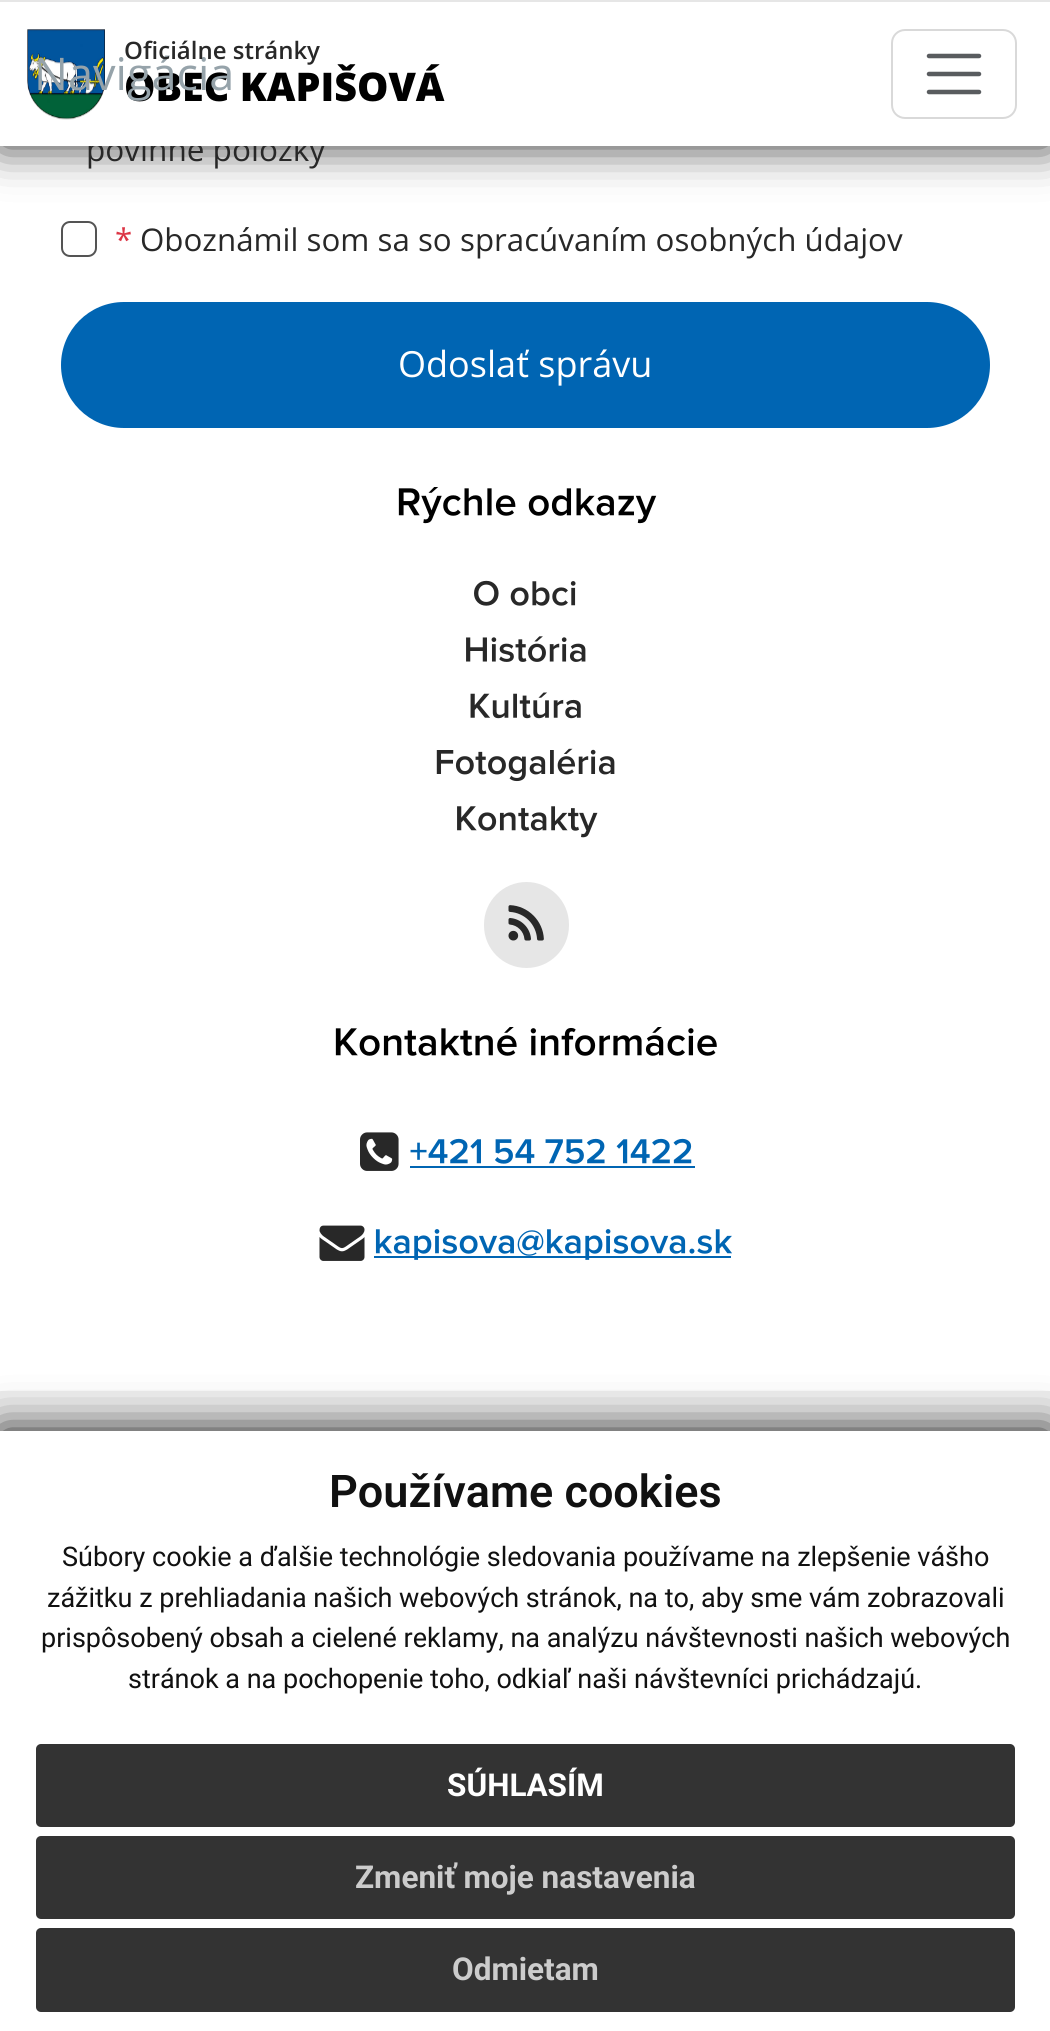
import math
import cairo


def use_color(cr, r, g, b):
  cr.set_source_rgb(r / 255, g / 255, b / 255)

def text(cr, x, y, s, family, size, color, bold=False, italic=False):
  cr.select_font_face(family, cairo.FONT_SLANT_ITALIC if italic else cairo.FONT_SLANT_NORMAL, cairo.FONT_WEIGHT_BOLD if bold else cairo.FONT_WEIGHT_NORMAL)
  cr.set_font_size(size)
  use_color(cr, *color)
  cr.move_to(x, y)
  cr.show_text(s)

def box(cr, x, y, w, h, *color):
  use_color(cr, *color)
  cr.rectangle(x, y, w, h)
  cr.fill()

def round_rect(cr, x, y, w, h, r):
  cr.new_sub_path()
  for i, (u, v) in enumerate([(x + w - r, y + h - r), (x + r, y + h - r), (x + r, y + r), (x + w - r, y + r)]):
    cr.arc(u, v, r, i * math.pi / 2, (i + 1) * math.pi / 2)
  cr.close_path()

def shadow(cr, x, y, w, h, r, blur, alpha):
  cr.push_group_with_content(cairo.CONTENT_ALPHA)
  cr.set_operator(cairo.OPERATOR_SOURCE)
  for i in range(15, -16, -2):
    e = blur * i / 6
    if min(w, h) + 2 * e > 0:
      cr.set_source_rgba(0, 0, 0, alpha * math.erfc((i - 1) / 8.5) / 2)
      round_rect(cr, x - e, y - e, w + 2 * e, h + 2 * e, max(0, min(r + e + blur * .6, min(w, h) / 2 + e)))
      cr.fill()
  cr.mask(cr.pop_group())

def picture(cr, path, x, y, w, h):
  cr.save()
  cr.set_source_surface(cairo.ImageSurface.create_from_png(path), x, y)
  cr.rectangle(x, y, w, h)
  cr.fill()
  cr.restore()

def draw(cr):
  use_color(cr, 241, 241, 241)
  cr.paint()
  box(cr, 0, 146, 1050, 1245, 255, 255, 255)
  use_color(cr, 51, 51, 51)
  shadow(cr, 0, 0, 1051, 146, 0, 22.5, 1)
  box(cr, 0, 0, 1050, 2, 230, 230, 230)
  round_rect(cr, 62, 222, 34, 34, 8)
  use_color(cr, 84, 84, 84)
  cr.stroke()
  use_color(cr, 0, 101, 179)
  round_rect(cr, 61, 302, 929, 126, 63)
  cr.fill()
  picture(cr, "img_02.png", 398, 487, 259, 37)
  picture(cr, "img_03.png", 474, 580, 102, 26)
  picture(cr, "img_04.png", 466, 636, 120, 26)
  picture(cr, "img_05.png", 470, 692, 111, 27)
  picture(cr, "img_06.png", 436, 748, 179, 34)
  picture(cr, "img_07.png", 457, 806, 141, 32)
  use_color(cr, 230, 230, 230)
  round_rect(cr, 484, 882, 85, 86, 42.5)
  cr.fill()
  picture(cr, "img_08.png", 508, 905, 36, 36)
  picture(cr, "img_09.png", 335, 1027, 382, 29)
  picture(cr, "img_10.png", 360, 1132, 39, 39)
  picture(cr, "img_11.png", 410, 1138, 282, 26)
  box(cr, 410, 1166, 285, 2, 0, 101, 179)
  picture(cr, "img_12.png", 319, 1225, 46, 36)
  box(cr, 374, 1256, 357, 2, 0, 101, 179)
  picture(cr, "img_13.png", 375, 1229, 357, 31)
  use_color(cr, 17, 17, 17)
  shadow(cr, 0, 1431, 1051, 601, 0, 22.5, 1)
  box(cr, 0, 1431, 1050, 600, 255, 255, 255)
  use_color(cr, 51, 51, 51)
  round_rect(cr, 36, 1744, 979, 83, 5)
  cr.fill()
  round_rect(cr, 36, 1836, 979, 83, 5)
  cr.fill()
  round_rect(cr, 36, 1928, 979, 84, 5)
  cr.fill()
  text(cr, 86, 161, "povinné položky", "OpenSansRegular", 31.5, (40, 40, 40))
  box(cr, 0, 2, 1050, 144, 255, 255, 255)
  text(cr, 124, 101, "OBEC KAPIŠOVÁ", "Open Sans ExtraBold", 39.5, (0, 0, 0))
  picture(cr, "img_01.png", 27, 29, 78, 91)
  text(cr, 34, 90, "Navigácia", "OpenSansRegular", 45, (150, 163, 170))
  round_rect(cr, 892, 30, 124, 88, 13)
  use_color(cr, 217, 217, 217)
  cr.stroke()
  cr.new_path()
  cr.move_to(929, 56)
  cr.line_to(979, 56)
  cr.move_to(929, 74)
  cr.line_to(979, 74)
  cr.move_to(929, 92)
  cr.line_to(979, 92)
  use_color(cr, 89, 92, 95)
  cr.set_line_width(4.5)
  cr.set_line_cap(cairo.LINE_CAP_ROUND)
  cr.stroke()
  text(cr, 124, 59, "Oficiálne stránky", "Open Sans SemiBold", 24, (40, 40, 40))
  text(cr, 115, 251, "*", "OpenSansRegular", 31.25, (220, 53, 69))
  text(cr, 140, 251, "Oboznámil som sa so", "OpenSansRegular", 31.25, (40, 40, 40))
  text(cr, 460, 251, "spracúvaním osobných údajov", "OpenSansRegular", 31.25, (40, 40, 40))
  text(cr, 398, 377, "Odoslať správu", "OpenSansRegular", 36, (255, 255, 255))
  text(cr, 329, 1507, "Používame cookies", "Roboto SemiBold", 45, (17, 17, 17))
  text(cr, 62, 1566, "Súbory cookie a ďalšie technológie sledovania používame na zlepšenie vášho", "Roboto", 27, (17, 17, 17))
  text(cr, 47, 1607, "zážitku z prehliadania našich webových stránok, na to, aby sme vám zobrazovali", "Roboto", 27, (17, 17, 17))
  text(cr, 41, 1647, "prispôsobený obsah a cielené reklamy, na analýzu návštevnosti našich webových", "Roboto", 27, (17, 17, 17))
  text(cr, 128, 1688, "stránok a na pochopenie toho, odkiaľ naši návštevníci prichádzajú.", "Roboto", 27, (17, 17, 17))
  text(cr, 447, 1796, "SÚHLASÍM", "Roboto", 31.5, (255, 255, 255), bold=True)
  text(cr, 355, 1888, "Zmeniť moje nastavenia", "Roboto", 31.5, (204, 204, 204), bold=True)
  text(cr, 452, 1980, "Odmietam", "Roboto", 31.5, (204, 204, 204), bold=True)


surface = cairo.ImageSurface(cairo.FORMAT_RGB24, 1050, 2031)
cr = cairo.Context(surface)
options = cairo.FontOptions()
options.set_hint_metrics(cairo.HINT_METRICS_OFF)
options.set_hint_style(cairo.HINT_STYLE_NONE)
cr.set_font_options(options)
cr.set_miter_limit(4)
draw(cr)
surface.write_to_png("out.png")
